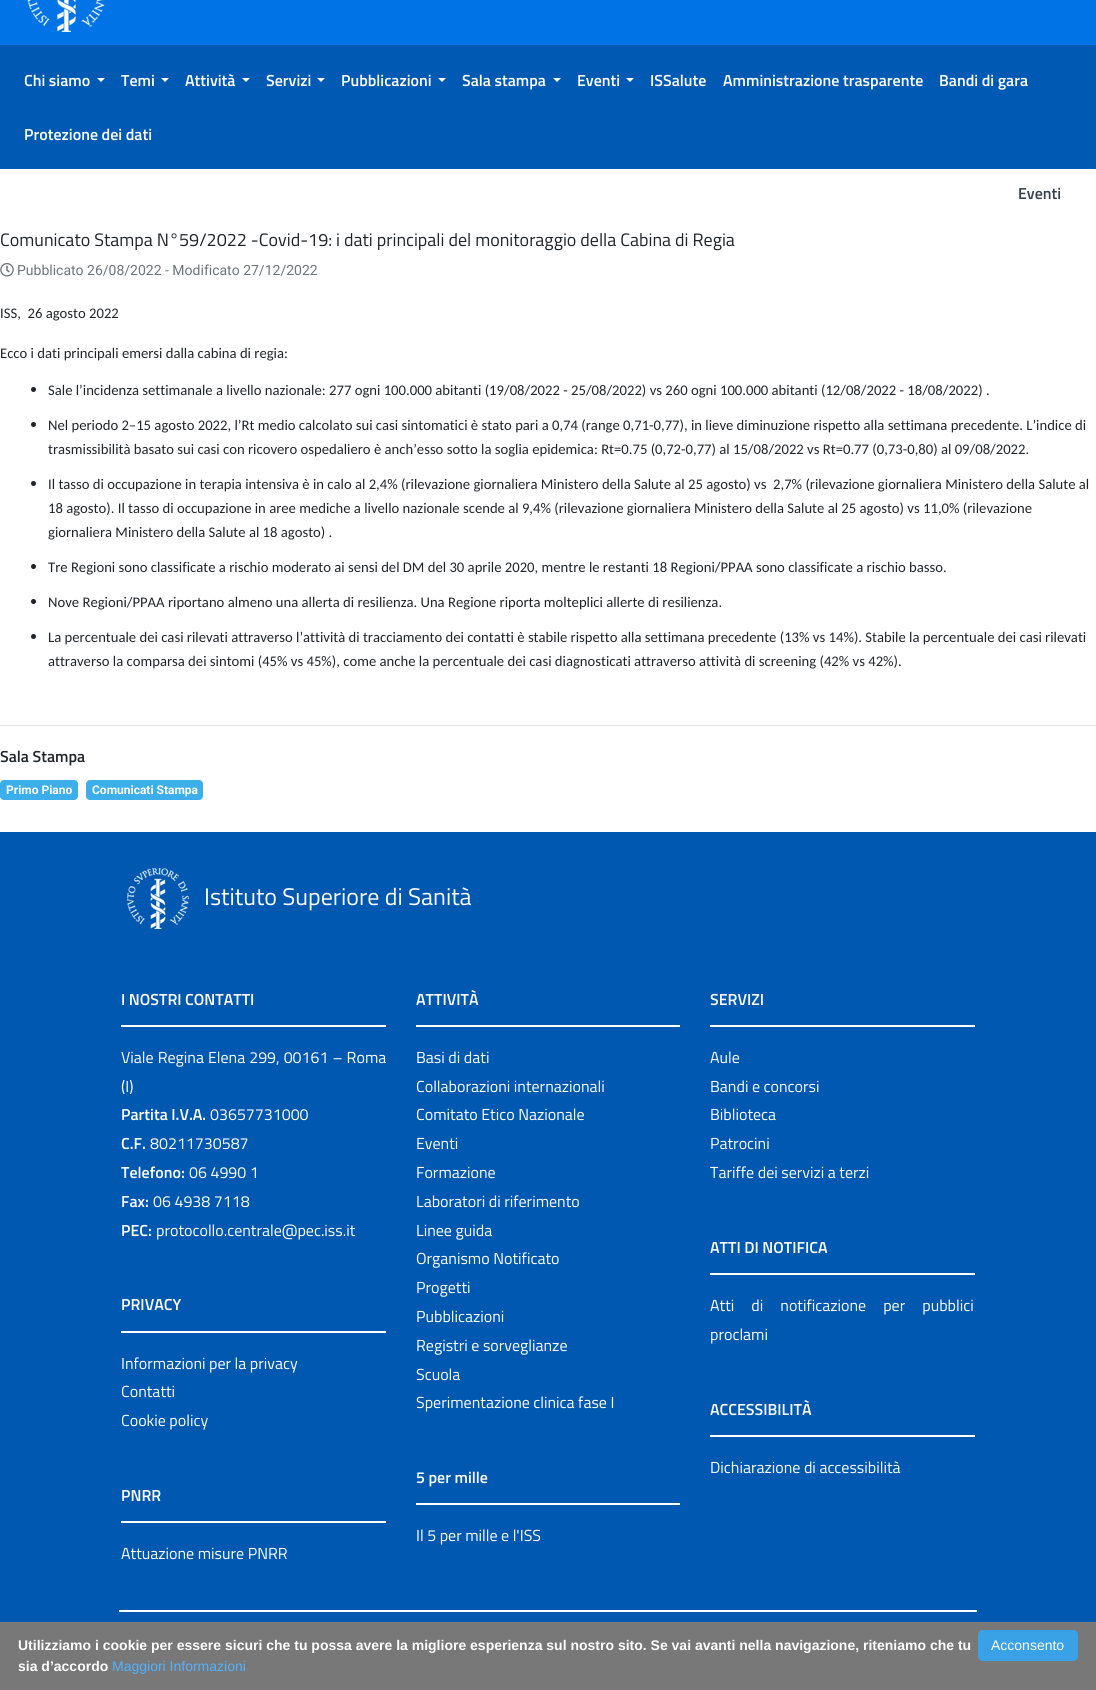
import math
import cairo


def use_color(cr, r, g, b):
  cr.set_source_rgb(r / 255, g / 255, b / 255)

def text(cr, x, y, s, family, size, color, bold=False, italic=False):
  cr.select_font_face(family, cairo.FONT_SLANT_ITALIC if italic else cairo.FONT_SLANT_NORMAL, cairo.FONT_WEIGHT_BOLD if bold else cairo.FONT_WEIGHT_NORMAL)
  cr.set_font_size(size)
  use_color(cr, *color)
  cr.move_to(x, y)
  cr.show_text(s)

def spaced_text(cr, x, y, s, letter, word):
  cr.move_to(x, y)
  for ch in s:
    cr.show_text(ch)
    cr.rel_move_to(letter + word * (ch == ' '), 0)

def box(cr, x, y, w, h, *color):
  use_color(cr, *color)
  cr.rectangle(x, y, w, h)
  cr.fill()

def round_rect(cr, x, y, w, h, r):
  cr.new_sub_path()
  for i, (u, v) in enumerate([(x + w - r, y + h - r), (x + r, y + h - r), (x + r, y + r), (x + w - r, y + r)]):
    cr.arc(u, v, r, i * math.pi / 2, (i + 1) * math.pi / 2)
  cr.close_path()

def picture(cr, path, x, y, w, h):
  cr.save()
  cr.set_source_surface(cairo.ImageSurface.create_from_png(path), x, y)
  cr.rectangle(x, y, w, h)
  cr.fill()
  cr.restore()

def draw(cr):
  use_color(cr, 255, 255, 255)
  cr.paint()
  box(cr, 0, 0, 1096, 45, 0, 115, 230)
  picture(cr, "img_01.png", 27, 0, 78, 32)
  box(cr, 0, 45, 1096, 124, 0, 89, 179)
  use_color(cr, 255, 255, 255)
  cr.new_path()
  cr.move_to(97, 78)
  cr.line_to(105, 78)
  cr.line_to(101, 82)
  cr.close_path()
  cr.fill()
  cr.new_path()
  cr.move_to(161, 78)
  cr.line_to(169, 78)
  cr.line_to(165, 82)
  cr.close_path()
  cr.fill()
  cr.new_path()
  cr.move_to(242, 78)
  cr.line_to(250, 78)
  cr.line_to(246, 82)
  cr.close_path()
  cr.fill()
  cr.new_path()
  cr.move_to(317, 78)
  cr.line_to(325, 78)
  cr.line_to(321, 82)
  cr.close_path()
  cr.fill()
  cr.new_path()
  cr.move_to(438, 78)
  cr.line_to(446, 78)
  cr.line_to(442, 82)
  cr.close_path()
  cr.fill()
  cr.new_path()
  cr.move_to(553, 78)
  cr.line_to(561, 78)
  cr.line_to(557, 82)
  cr.close_path()
  cr.fill()
  cr.new_path()
  cr.move_to(626, 78)
  cr.line_to(634, 78)
  cr.line_to(630, 82)
  cr.close_path()
  cr.fill()
  picture(cr, "img_02.png", 0, 263, 14, 14)
  use_color(cr, 33, 37, 41)
  cr.arc(33.5, 389.5, 2.5, 0, 2 * math.pi)
  cr.fill()
  cr.arc(33.5, 424.5, 2.5, 0, 2 * math.pi)
  cr.fill()
  cr.arc(33.5, 483.5, 2.5, 0, 2 * math.pi)
  cr.fill()
  cr.arc(33.5, 566.5, 2.5, 0, 2 * math.pi)
  cr.fill()
  cr.arc(33.5, 601.5, 2.5, 0, 2 * math.pi)
  cr.fill()
  cr.arc(33.5, 636.5, 2.5, 0, 2 * math.pi)
  cr.fill()
  box(cr, 0, 725, 1096, 1, 230, 230, 230)
  use_color(cr, 60, 174, 235)
  round_rect(cr, 0, 780, 78, 20, 4)
  cr.fill()
  round_rect(cr, 86, 780, 117, 20, 4)
  cr.fill()
  box(cr, 0, 832, 1096, 790, 1, 88, 176)
  picture(cr, "img_03.png", 127, 868, 62, 61)
  box(cr, 121, 1025, 265, 2, 255, 255, 255)
  box(cr, 121, 1331, 265, 2, 255, 255, 255)
  box(cr, 121, 1521, 265, 2, 255, 255, 255)
  box(cr, 416, 1025, 264, 2, 255, 255, 255)
  box(cr, 416, 1503, 264, 2, 255, 255, 255)
  box(cr, 710, 1025, 265, 2, 255, 255, 255)
  box(cr, 710, 1273, 265, 2, 255, 255, 255)
  box(cr, 710, 1435, 265, 2, 255, 255, 255)
  box(cr, 119, 1610, 858, 2, 255, 255, 255)
  box(cr, 0, 1622, 1096, 68, 120, 120, 120)
  use_color(cr, 57, 161, 230)
  round_rect(cr, 978, 1630, 100, 31, 5)
  cr.fill()
  text(cr, 24, 86, "Chi siamo", "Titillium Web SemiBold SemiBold", 16, (255, 255, 255))
  text(cr, 121, 86, "Temi", "Titillium Web SemiBold SemiBold", 16, (255, 255, 255))
  text(cr, 185, 86, "Attività", "Titillium Web SemiBold SemiBold", 16, (255, 255, 255))
  text(cr, 266, 86, "Servizi", "Titillium Web SemiBold SemiBold", 16, (255, 255, 255))
  text(cr, 341, 86, "Pubblicazioni", "Titillium Web SemiBold SemiBold", 16, (255, 255, 255))
  text(cr, 462, 86, "Sala stampa", "Titillium Web SemiBold SemiBold", 16, (255, 255, 255))
  text(cr, 577, 86, "Eventi", "Titillium Web SemiBold SemiBold", 16, (255, 255, 255))
  text(cr, 650, 86, "ISSalute", "Titillium Web SemiBold SemiBold", 16, (255, 255, 255))
  text(cr, 723, 86, "Amministrazione trasparente", "Titillium Web SemiBold SemiBold", 16, (255, 255, 255))
  text(cr, 939, 86, "Bandi di gara", "Titillium Web SemiBold SemiBold", 16, (255, 255, 255))
  text(cr, 24, 140, "Protezione dei dati", "Titillium Web SemiBold SemiBold", 16, (255, 255, 255))
  text(cr, 1018, 199, "Eventi", "Titillium Web SemiBold SemiBold", 16, (56, 63, 79))
  text(cr, 0, 246, "Comunicato Stampa N°59/2022 -Covid-19: i dati principali del monitoraggio della Cabina di Regia", "Titillium Web", 18, (33, 37, 41))
  text(cr, 17, 275, "Pubblicato 26/08/2022 - Modificato 27/12/2022", "Roboto", 14, (108, 117, 125))
  text(cr, 0, 318, "ISS,  26 agosto 2022", "Carlito", 14.67, (33, 37, 41))
  text(cr, 0, 358, "Ecco i dati principali emersi dalla cabina di regia:", "Carlito", 14.67, (33, 37, 41))
  text(cr, 48, 395, "Sale l’incidenza settimanale a livello nazionale: 277 ogni 100.000 abitanti (19/08/2022 - 25/08/2022) vs 260 ogni 100.000 abitanti (12/08/2022 - 18/08/2022) .", "Carlito", 14.67, (33, 37, 41))
  text(cr, 48, 430, "Nel periodo 2–15 agosto 2022, l’Rt medio calcolato sui casi sintomatici è stato pari a 0,74 (range 0,71-0,77), in lieve diminuzione rispetto alla settimana precedente. L’indice di", "Carlito", 14.67, (33, 37, 41))
  text(cr, 48, 454, "trasmissibilità basato sui casi con ricovero ospedaliero è anch’esso sotto la soglia epidemica: Rt=0.75 (0,72-0,77) al 15/08/2022 vs Rt=0.77 (0,73-0,80) al 09/08/2022.", "Carlito", 14.67, (33, 37, 41))
  text(cr, 48, 489, "Il tasso di occupazione in terapia intensiva è in calo al 2,4% (rilevazione giornaliera Ministero della Salute al 25 agosto) vs  2,7% (rilevazione giornaliera Ministero della Salute al", "Carlito", 14.67, (33, 37, 41))
  text(cr, 48, 513, "18 agosto). Il tasso di occupazione in aree mediche a livello nazionale scende al 9,4% (rilevazione giornaliera Ministero della Salute al 25 agosto) vs 11,0% (rilevazione", "Carlito", 14.67, (33, 37, 41))
  text(cr, 48, 537, "giornaliera Ministero della Salute al 18 agosto) .", "Carlito", 14.67, (33, 37, 41))
  text(cr, 48, 572, "Tre Regioni sono classificate a rischio moderato ai sensi del DM del 30 aprile 2020, mentre le restanti 18 Regioni/PPAA sono classificate a rischio basso.", "Carlito", 14.67, (33, 37, 41))
  text(cr, 48, 607, "Nove Regioni/PPAA riportano almeno una allerta di resilienza. Una Regione riporta molteplici allerte di resilienza.", "Carlito", 14.67, (33, 37, 41))
  text(cr, 48, 642, "La percentuale dei casi rilevati attraverso l’attività di tracciamento dei contatti è stabile rispetto alla settimana precedente (13% vs 14%). Stabile la percentuale dei casi rilevati", "Carlito", 14.67, (33, 37, 41))
  text(cr, 48, 666, "attraverso la comparsa dei sintomi (45% vs 45%), come anche la percentuale dei casi diagnosticati attraverso attività di screening (42% vs 42%).", "Carlito", 14.67, (33, 37, 41))
  text(cr, 0, 762, "Sala Stampa", "Titillium Web SemiBold SemiBold", 16, (33, 37, 41))
  text(cr, 6, 794, "Primo Piano", "Roboto", 12, (255, 255, 255), bold=True)
  text(cr, 92, 794, "Comunicati Stampa", "Roboto", 12, (255, 255, 255), bold=True)
  text(cr, 204, 905, "Istituto Superiore di Sanità", "Titillium Web", 24, (255, 255, 255))
  text(cr, 121, 1005, "I NOSTRI CONTATTI", "Titillium Web SemiBold SemiBold", 16, (255, 255, 255))
  cr.select_font_face("Titillium Web")
  spaced_text(cr, 121, 1063, "Viale Regina Elena 299, 00161 – Roma", 0, 0.5)
  text(cr, 121, 1092, "(I)", "Titillium Web", 16, (255, 255, 255))
  text(cr, 121, 1120, "Partita I.V.A.", "Titillium Web SemiBold SemiBold", 16, (255, 255, 255))
  text(cr, 210, 1120, "03657731000", "Titillium Web", 16, (255, 255, 255))
  text(cr, 121, 1149, "C.F.", "Titillium Web SemiBold SemiBold", 16, (255, 255, 255))
  text(cr, 150, 1149, "80211730587", "Titillium Web", 16, (255, 255, 255))
  text(cr, 121, 1178, "Telefono:", "Titillium Web SemiBold SemiBold", 16, (255, 255, 255))
  text(cr, 189, 1178, "06 4990 1", "Titillium Web", 16, (255, 255, 255))
  text(cr, 121, 1207, "Fax:", "Titillium Web SemiBold SemiBold", 16, (255, 255, 255))
  text(cr, 153, 1207, "06 4938 7118", "Titillium Web", 16, (255, 255, 255))
  text(cr, 121, 1236, "PEC:", "Titillium Web SemiBold SemiBold", 16, (255, 255, 255))
  text(cr, 156, 1236, "protocollo.centrale@pec.iss.it", "Titillium Web", 16, (255, 255, 255))
  text(cr, 121, 1310, "PRIVACY", "Titillium Web SemiBold SemiBold", 16, (255, 255, 255))
  text(cr, 121, 1369, "Informazioni per la privacy", "Titillium Web", 16, (255, 255, 255))
  text(cr, 121, 1397, "Contatti", "Titillium Web", 16, (255, 255, 255))
  text(cr, 121, 1426, "Cookie policy", "Titillium Web", 16, (255, 255, 255))
  text(cr, 121, 1501, "PNRR", "Titillium Web SemiBold SemiBold", 16, (255, 255, 255))
  text(cr, 121, 1559, "Attuazione misure PNRR", "Titillium Web", 16, (255, 255, 255))
  text(cr, 416, 1005, "ATTIVITÀ", "Titillium Web SemiBold SemiBold", 16, (255, 255, 255))
  text(cr, 416, 1063, "Basi di dati", "Titillium Web", 16, (255, 255, 255))
  text(cr, 416, 1092, "Collaborazioni internazionali", "Titillium Web", 16, (255, 255, 255))
  text(cr, 416, 1120, "Comitato Etico Nazionale", "Titillium Web", 16, (255, 255, 255))
  text(cr, 416, 1149, "Eventi", "Titillium Web", 16, (255, 255, 255))
  text(cr, 416, 1178, "Formazione", "Titillium Web", 16, (255, 255, 255))
  text(cr, 416, 1207, "Laboratori di riferimento", "Titillium Web", 16, (255, 255, 255))
  text(cr, 416, 1236, "Linee guida", "Titillium Web", 16, (255, 255, 255))
  text(cr, 416, 1264, "Organismo Notificato", "Titillium Web", 16, (255, 255, 255))
  text(cr, 416, 1293, "Progetti", "Titillium Web", 16, (255, 255, 255))
  text(cr, 416, 1322, "Pubblicazioni", "Titillium Web", 16, (255, 255, 255))
  text(cr, 416, 1351, "Registri e sorveglianze", "Titillium Web", 16, (255, 255, 255))
  text(cr, 416, 1380, "Scuola", "Titillium Web", 16, (255, 255, 255))
  text(cr, 416, 1408, "Sperimentazione clinica fase I", "Titillium Web", 16, (255, 255, 255))
  text(cr, 416, 1483, "5 per mille", "Titillium Web SemiBold SemiBold", 16, (255, 255, 255))
  text(cr, 416, 1541, "Il 5 per mille e l'ISS", "Titillium Web", 16, (255, 255, 255))
  text(cr, 710, 1005, "SERVIZI", "Titillium Web SemiBold SemiBold", 16, (255, 255, 255))
  text(cr, 710, 1063, "Aule", "Titillium Web", 16, (255, 255, 255))
  text(cr, 710, 1092, "Bandi e concorsi", "Titillium Web", 16, (255, 255, 255))
  text(cr, 710, 1120, "Biblioteca", "Titillium Web", 16, (255, 255, 255))
  text(cr, 710, 1149, "Patrocini", "Titillium Web", 16, (255, 255, 255))
  text(cr, 710, 1178, "Tariffe dei servizi a terzi", "Titillium Web", 16, (255, 255, 255))
  text(cr, 710, 1253, "ATTI DI NOTIFICA", "Titillium Web SemiBold SemiBold", 16, (255, 255, 255))
  cr.select_font_face("Titillium Web")
  spaced_text(cr, 710, 1311, "Atti di notificazione per pubblici", 0, 13.5)
  text(cr, 710, 1340, "proclami", "Titillium Web", 16, (255, 255, 255))
  text(cr, 710, 1415, "ACCESSIBILITÀ", "Titillium Web SemiBold SemiBold", 16, (255, 255, 255))
  text(cr, 710, 1473, "Dichiarazione di accessibilità", "Titillium Web", 16, (255, 255, 255))
  text(cr, 18, 1650, "Utilizziamo i cookie per essere sicuri che tu possa avere la migliore esperienza sul nostro sito. Se vai avanti nella navigazione, riteniamo che tu", "Liberation Sans", 14, (255, 255, 255), bold=True)
  text(cr, 18, 1671, "sia d’accordo", "Liberation Sans", 14, (255, 255, 255), bold=True)
  text(cr, 112, 1671, "Maggiori Informazioni", "Liberation Sans", 14, (82, 177, 255))
  text(cr, 991, 1650, "Acconsento", "Liberation Sans", 14, (255, 255, 255))


surface = cairo.ImageSurface(cairo.FORMAT_RGB24, 1096, 1690)
cr = cairo.Context(surface)
options = cairo.FontOptions()
options.set_hint_metrics(cairo.HINT_METRICS_OFF)
options.set_hint_style(cairo.HINT_STYLE_NONE)
cr.set_font_options(options)
cr.set_miter_limit(4)
draw(cr)
surface.write_to_png("out.png")
